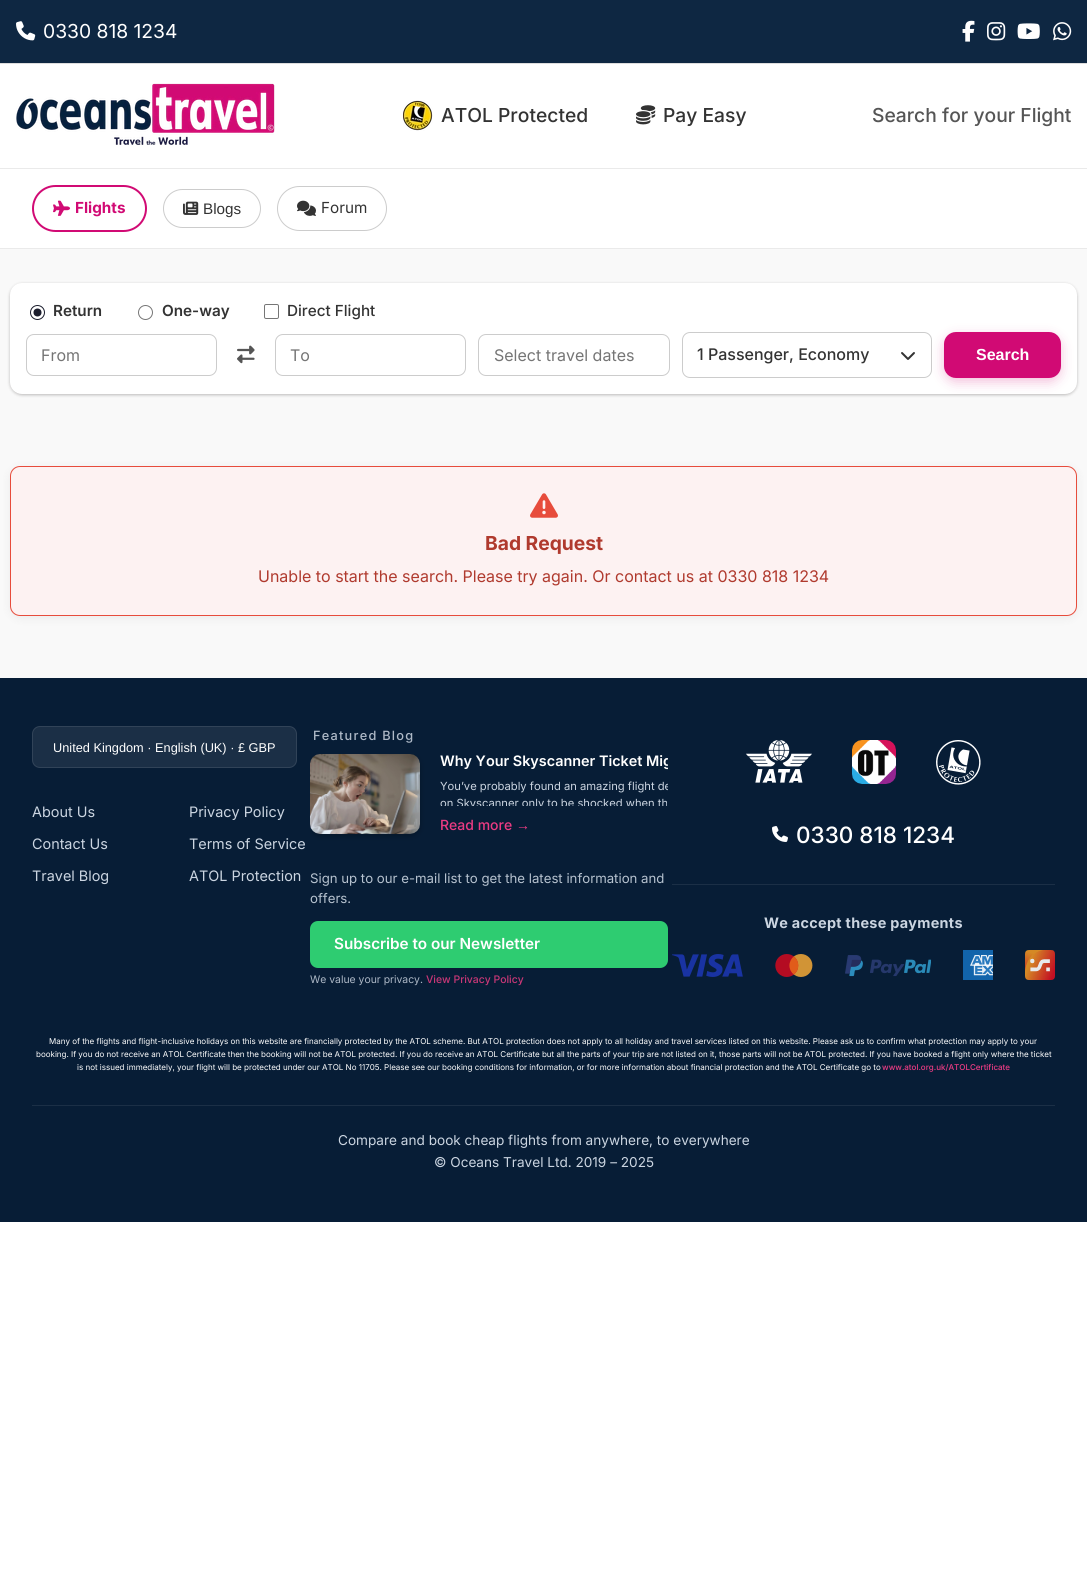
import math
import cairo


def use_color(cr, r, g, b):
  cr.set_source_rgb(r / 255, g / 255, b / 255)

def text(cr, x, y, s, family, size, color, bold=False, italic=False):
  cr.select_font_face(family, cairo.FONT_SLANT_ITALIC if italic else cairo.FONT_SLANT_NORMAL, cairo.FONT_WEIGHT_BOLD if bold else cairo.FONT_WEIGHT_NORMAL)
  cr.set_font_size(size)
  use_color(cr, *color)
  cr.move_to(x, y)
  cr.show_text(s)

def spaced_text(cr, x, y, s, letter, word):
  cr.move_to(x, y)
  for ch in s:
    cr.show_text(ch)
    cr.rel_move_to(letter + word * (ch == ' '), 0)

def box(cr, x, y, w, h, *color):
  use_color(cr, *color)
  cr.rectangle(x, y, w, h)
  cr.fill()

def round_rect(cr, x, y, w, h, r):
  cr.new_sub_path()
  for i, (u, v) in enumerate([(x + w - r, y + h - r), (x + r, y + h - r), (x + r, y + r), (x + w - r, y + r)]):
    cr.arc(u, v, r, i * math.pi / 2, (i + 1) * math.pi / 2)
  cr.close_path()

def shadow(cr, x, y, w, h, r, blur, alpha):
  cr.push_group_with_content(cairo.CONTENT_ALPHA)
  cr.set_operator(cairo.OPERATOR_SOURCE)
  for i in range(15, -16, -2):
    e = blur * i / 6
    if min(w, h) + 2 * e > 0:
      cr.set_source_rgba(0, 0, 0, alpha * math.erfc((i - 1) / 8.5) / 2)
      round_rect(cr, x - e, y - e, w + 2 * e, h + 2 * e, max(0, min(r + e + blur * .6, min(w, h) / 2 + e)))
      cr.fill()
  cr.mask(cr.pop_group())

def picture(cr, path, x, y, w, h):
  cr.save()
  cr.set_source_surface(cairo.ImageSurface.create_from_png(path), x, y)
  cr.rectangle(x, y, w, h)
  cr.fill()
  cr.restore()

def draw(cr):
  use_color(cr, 255, 255, 255)
  cr.paint()
  box(cr, 0, 0, 1087, 63, 14, 39, 66)
  box(cr, 0, 63, 1087, 1, 221, 221, 221)
  picture(cr, "img_01.png", 16, 21, 20, 20)
  picture(cr, "img_02.png", 962, 20, 13, 22)
  picture(cr, "img_03.png", 987, 22, 19, 19)
  picture(cr, "img_04.png", 1017, 23, 23, 16)
  picture(cr, "img_05.png", 1053, 22, 19, 19)
  picture(cr, "img_06.png", 16, 83, 259, 62)
  picture(cr, "img_07.png", 403, 100, 30, 31)
  picture(cr, "img_08.png", 636, 105, 20, 20)
  box(cr, 0, 168, 1087, 1, 234, 234, 234)
  box(cr, 0, 248, 1087, 1, 234, 234, 234)
  round_rect(cr, 33, 186, 113, 45, 22.5)
  use_color(cr, 209, 10, 116)
  cr.stroke()
  picture(cr, "img_09.png", 53, 200, 18, 16)
  round_rect(cr, 163.5, 189.5, 97, 38, 19)
  use_color(cr, 204, 204, 204)
  cr.set_line_width(1)
  cr.stroke()
  picture(cr, "img_10.png", 183, 201, 16, 14)
  round_rect(cr, 277.5, 186.5, 109, 44, 22)
  cr.stroke()
  picture(cr, "img_11.png", 297, 200, 19, 16)
  box(cr, 0, 249, 1087, 429, 249, 249, 249)
  use_color(cr, 37, 32, 31)
  shadow(cr, 10, 284, 1067, 111, 12, 1.5, 0.3)
  use_color(cr, 255, 255, 255)
  round_rect(cr, 10, 283, 1067, 111, 12)
  cr.fill()
  cr.arc(37.5, 312.5, 7, 0, 2 * math.pi)
  use_color(cr, 26, 28, 44)
  cr.stroke()
  cr.arc(37.5, 312.5, 4, 0, 2 * math.pi)
  cr.fill()
  cr.arc(145.5, 312.5, 7, 0, 2 * math.pi)
  use_color(cr, 118, 118, 118)
  cr.stroke()
  round_rect(cr, 264.5, 304.5, 14, 14, 1.5)
  cr.stroke()
  round_rect(cr, 26.5, 334.5, 190, 41, 7.5)
  use_color(cr, 204, 204, 204)
  cr.stroke()
  picture(cr, "img_12.png", 237, 345, 18, 19)
  round_rect(cr, 275.5, 334.5, 190, 41, 7.5)
  cr.stroke()
  round_rect(cr, 478.5, 334.5, 191, 41, 7.5)
  cr.stroke()
  round_rect(cr, 682.5, 332.5, 249, 45, 7.5)
  cr.stroke()
  picture(cr, "img_13.png", 901, 352, 14, 8)
  use_color(cr, 209, 10, 116)
  shadow(cr, 944, 336, 117, 46, 12, 6, 0.25)
  use_color(cr, 209, 10, 116)
  round_rect(cr, 944, 332, 117, 46, 12)
  cr.fill()
  use_color(cr, 0, 0, 0)
  shadow(cr, 10, 468, 1067, 150, 10, 5, 0.06)
  use_color(cr, 253, 242, 242)
  round_rect(cr, 10.5, 466.5, 1066, 149, 9.5)
  cr.fill_preserve()
  use_color(cr, 231, 76, 60)
  cr.stroke()
  picture(cr, "img_14.png", 530, 493, 28, 25)
  box(cr, 0, 678, 1087, 544, 7, 29, 54)
  use_color(cr, 27, 47, 70)
  round_rect(cr, 32, 726, 265, 42, 8)
  cr.fill()
  round_rect(cr, 32.5, 726.5, 264, 41, 7.5)
  cr.set_source_rgba(1, 1, 1, 0.1)
  cr.stroke()
  cr.save()
  cr.rectangle(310, 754, 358, 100)
  cr.clip()
  use_color(cr, 0, 0, 0)
  shadow(cr, 310, 756, 110, 80, 10, 3, 0.25)
  cr.restore()
  picture(cr, "img_15.png", 310, 754, 110, 80)
  use_color(cr, 46, 204, 113)
  round_rect(cr, 310, 921, 358, 47, 8)
  cr.fill()
  picture(cr, "img_16.png", 746, 740, 66, 43)
  picture(cr, "img_17.png", 852, 740, 44, 44)
  picture(cr, "img_18.png", 936, 740, 45, 45)
  picture(cr, "img_19.png", 772, 826, 16, 16)
  box(cr, 672, 884, 383, 1, 27, 47, 70)
  picture(cr, "img_20.png", 672, 954, 71, 23)
  picture(cr, "img_21.png", 775, 954, 38, 23)
  picture(cr, "img_22.png", 845, 955, 86, 22)
  picture(cr, "img_23.png", 963, 950, 30, 30)
  picture(cr, "img_24.png", 1025, 950, 30, 30)
  box(cr, 32, 1105, 1023, 1, 27, 47, 70)
  text(cr, 43, 38, "0330 818 1234", "Inter", 19.25, (255, 255, 255))
  text(cr, 441, 122, "ATOL Protected", "Inter Medium", 19.25, (51, 51, 51))
  text(cr, 663, 122, "Pay Easy", "Inter Medium", 19.25, (51, 51, 51))
  text(cr, 872, 122, "Search for your Flight", "Inter Medium", 19.25, (85, 85, 85))
  text(cr, 75, 213, "Flights", "Inter", 15.25, (209, 10, 116), bold=True)
  text(cr, 203, 214, "Blogs", "Liberation Sans", 15.25, (51, 51, 51))
  text(cr, 321, 213, "Forum", "Inter", 15.25, (51, 51, 51))
  text(cr, 53, 316, "Return", "Inter SemiBold", 15.25, (51, 51, 51))
  text(cr, 162, 316, "One-way", "Inter SemiBold", 15.25, (51, 51, 51))
  text(cr, 287, 316, "Direct Flight", "Inter Medium", 15.25, (51, 51, 51))
  text(cr, 41, 361, "From", "Inter", 16, (117, 117, 117))
  text(cr, 290, 361, "To", "Inter", 16, (117, 117, 117))
  text(cr, 494, 361, "Select travel dates", "Inter", 16, (117, 117, 117))
  text(cr, 697, 360, "1 Passenger, Economy", "Inter Medium", 16, (51, 51, 51))
  text(cr, 976, 360, "Search", "Liberation Sans", 16, (255, 255, 255), bold=True)
  text(cr, 485, 550, "Bad Request", "Inter", 19.25, (176, 58, 46), bold=True)
  text(cr, 258, 582, "Unable to start the search. Please try again. Or contact us at 0330 818 1234", "Inter", 16, (176, 58, 46))
  text(cr, 53, 752, "United Kingdom · English (UK) · £ GBP", "Liberation Sans", 12.75, (255, 255, 255))
  text(cr, 32, 817, "About Us", "Inter", 14.4, (203, 213, 225))
  text(cr, 32, 849, "Contact Us", "Inter", 14.4, (203, 213, 225))
  text(cr, 32, 881, "Travel Blog", "Inter", 14.4, (203, 213, 225))
  text(cr, 189, 817, "Privacy Policy", "Inter", 14.4, (203, 213, 225))
  text(cr, 189, 849, "Terms of Service", "Inter", 14.4, (203, 213, 225))
  text(cr, 189, 881, "ATOL Protection", "Inter", 14.4, (203, 213, 225))
  cr.select_font_face("Inter Medium")
  cr.set_font_size(12.75)
  use_color(cr, 174, 185, 199)
  spaced_text(cr, 313, 740, "Featured Blog", 1.25, 0)
  cr.save()
  cr.rectangle(440, 754, 228, 16)
  cr.clip()
  text(cr, 440, 766, "Why Your Skyscanner Ticket Mig", "Inter SemiBold", 14.4, (255, 255, 255))
  cr.restore()
  cr.save()
  cr.rectangle(440, 778, 228, 28)
  cr.clip()
  text(cr, 440, 790, "You’ve probably found an amazing flight de", "Inter", 11.2, (203, 213, 225))
  text(cr, 440, 807, "on Skyscanner only to be shocked when th", "Inter", 11.2, (203, 213, 225))
  cr.restore()
  text(cr, 440, 830, "Read more", "Inter Medium", 14, (236, 59, 131))
  text(cr, 516, 830, "→", "Liberation Sans", 14, (236, 59, 131))
  text(cr, 310, 883, "Sign up to our e-mail list to get the latest information and", "Inter", 13.2, (183, 195, 208))
  text(cr, 310, 903, "offers.", "Inter", 13.2, (183, 195, 208))
  text(cr, 334, 949, "Subscribe to our Newsletter", "Inter SemiBold", 15.25, (255, 255, 255))
  text(cr, 310, 983, "We value your privacy.", "Inter", 10.4, (174, 185, 199))
  text(cr, 426, 983, "View Privacy Policy", "Inter Medium", 10.4, (202, 55, 119))
  text(cr, 796, 843, "0330 818 1234", "Inter Medium", 22.5, (255, 255, 255))
  cr.select_font_face("Inter", cairo.FONT_SLANT_NORMAL, cairo.FONT_WEIGHT_BOLD)
  cr.set_font_size(14.4)
  use_color(cr, 203, 213, 225)
  spaced_text(cr, 764, 928, "We accept these payments", 0.3, 0)
  text(cr, 49, 1044, "Many of the flights and flight-inclusive holidays on this website are financially protected by the ATOL scheme. But ATOL protection does not apply to all holiday and travel services listed on this website. Please ask us to confirm what protection may apply to your", "Inter", 8, (255, 255, 255))
  text(cr, 36, 1057, "booking. If you do not receive an ATOL Certificate then the booking will not be ATOL protected. If you do receive an ATOL Certificate but all the parts of your trip are not listed on it, those parts will not be ATOL protected. If you have booked a flight only where the ticket", "Inter", 8, (255, 255, 255))
  text(cr, 77, 1070, "is not issued immediately, your flight will be protected under our ATOL No 11705. Please see our booking conditions for information, or for more information about financial protection and the ATOL Certificate go to", "Inter", 8, (255, 255, 255))
  text(cr, 882, 1070, "www.atol.org.uk/ATOLCertificate", "Inter Medium", 8, (236, 59, 131))
  text(cr, 338, 1145, "Compare and book cheap flights from anywhere, to everywhere", "Inter", 13.6, (203, 213, 225))
  text(cr, 434, 1167, "© Oceans Travel Ltd. 2019 – 2025", "Inter", 13.6, (203, 213, 225))


surface = cairo.ImageSurface(cairo.FORMAT_RGB24, 1087, 1576)
cr = cairo.Context(surface)
options = cairo.FontOptions()
options.set_hint_metrics(cairo.HINT_METRICS_OFF)
options.set_hint_style(cairo.HINT_STYLE_NONE)
cr.set_font_options(options)
cr.set_miter_limit(4)
draw(cr)
surface.write_to_png("out.png")
